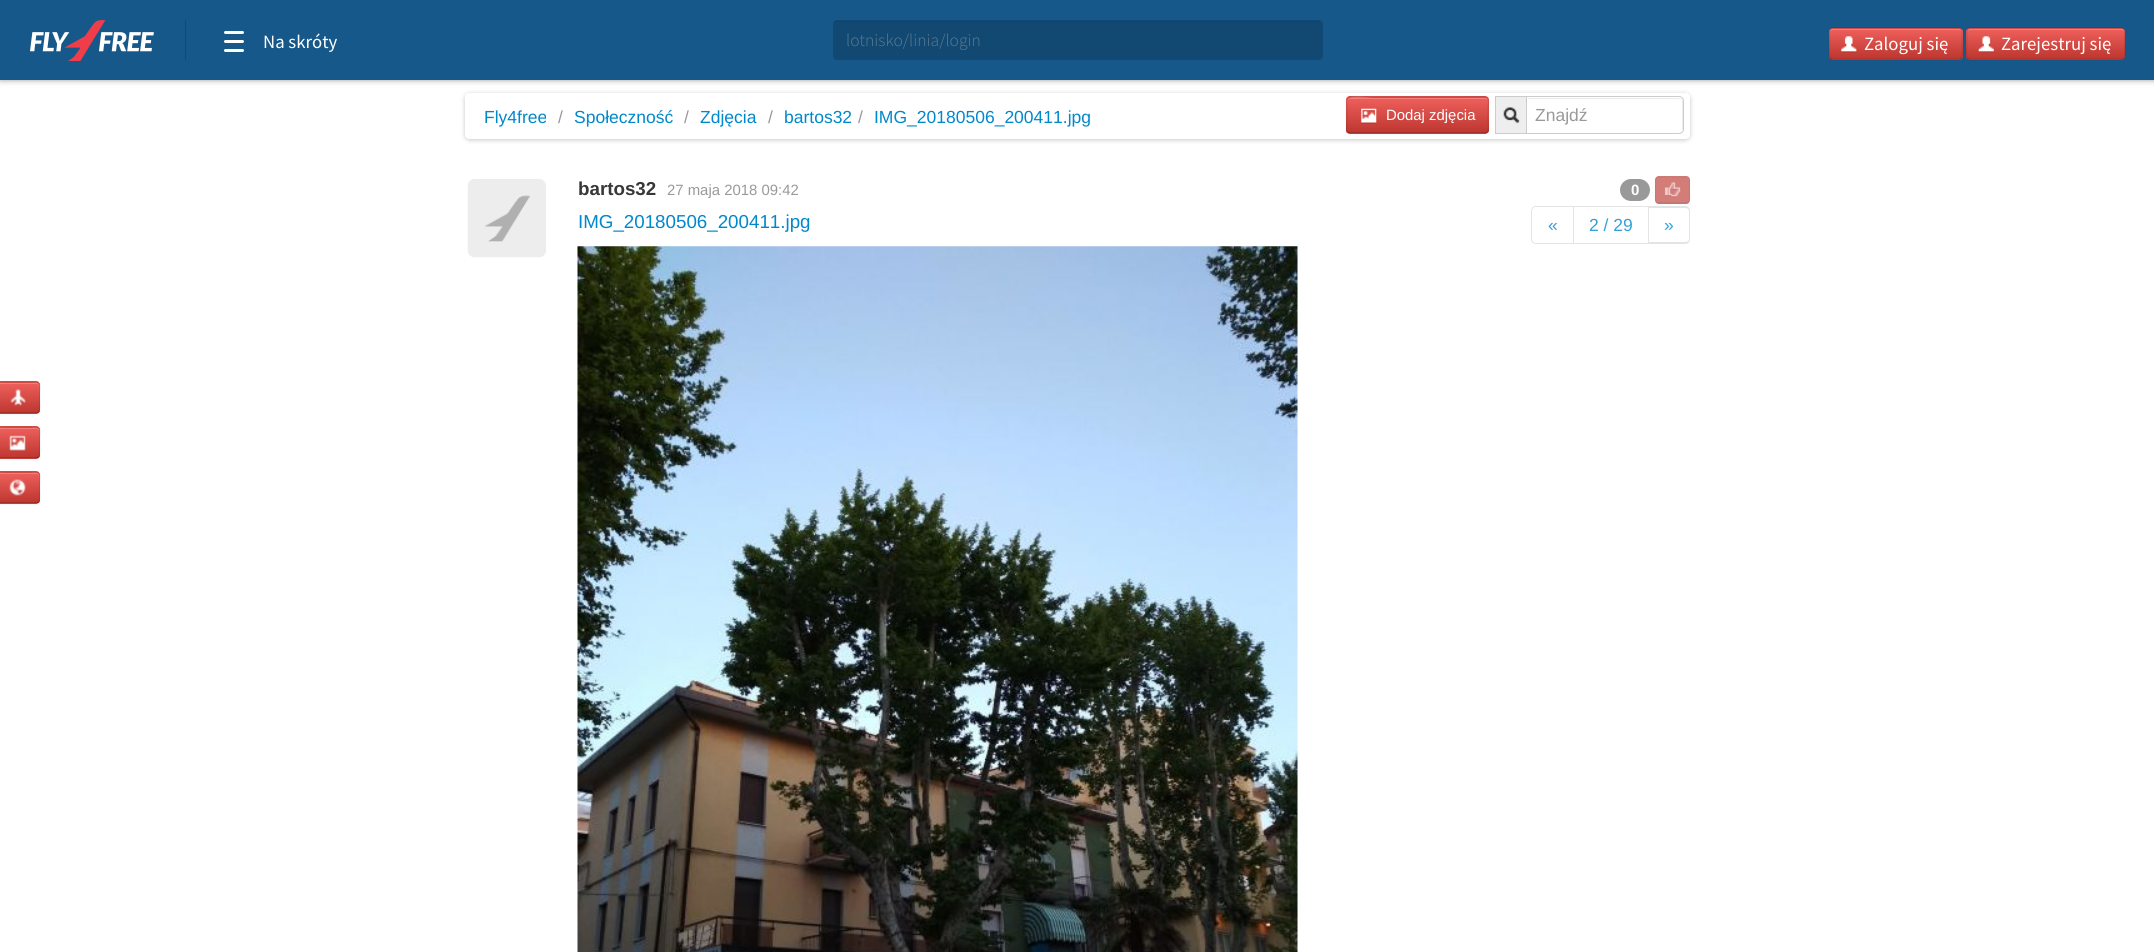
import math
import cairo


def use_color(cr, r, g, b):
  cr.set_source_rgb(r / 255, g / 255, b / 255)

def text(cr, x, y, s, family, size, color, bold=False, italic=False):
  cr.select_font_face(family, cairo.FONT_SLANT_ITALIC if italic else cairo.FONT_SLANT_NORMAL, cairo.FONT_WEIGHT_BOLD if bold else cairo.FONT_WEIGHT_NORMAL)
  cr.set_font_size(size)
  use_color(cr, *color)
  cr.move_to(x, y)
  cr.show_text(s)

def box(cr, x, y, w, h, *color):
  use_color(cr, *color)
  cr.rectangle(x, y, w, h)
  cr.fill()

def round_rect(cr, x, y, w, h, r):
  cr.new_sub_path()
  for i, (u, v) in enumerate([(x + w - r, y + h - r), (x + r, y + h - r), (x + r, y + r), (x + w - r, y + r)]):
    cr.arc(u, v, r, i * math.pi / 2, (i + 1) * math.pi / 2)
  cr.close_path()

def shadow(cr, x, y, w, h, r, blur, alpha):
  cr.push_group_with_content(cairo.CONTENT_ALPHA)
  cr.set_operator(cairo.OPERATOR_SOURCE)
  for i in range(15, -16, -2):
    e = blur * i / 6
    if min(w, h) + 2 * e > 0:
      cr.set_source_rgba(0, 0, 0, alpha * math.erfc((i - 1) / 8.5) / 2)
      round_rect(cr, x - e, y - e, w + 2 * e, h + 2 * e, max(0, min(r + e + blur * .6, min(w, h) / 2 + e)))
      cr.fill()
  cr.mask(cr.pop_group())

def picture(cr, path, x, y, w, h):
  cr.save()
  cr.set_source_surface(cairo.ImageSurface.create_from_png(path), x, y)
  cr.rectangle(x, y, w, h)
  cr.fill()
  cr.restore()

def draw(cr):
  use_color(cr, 255, 255, 255)
  cr.paint()
  use_color(cr, 0, 0, 0)
  shadow(cr, 0, 0, 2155, 80, 0, 3, 0.4)
  box(cr, 0, 0, 2154, 80, 23, 88, 138)
  picture(cr, "img_01.png", 30, 20, 124, 41)
  box(cr, 185, 20, 1, 40, 19, 74, 116)
  use_color(cr, 255, 255, 255)
  round_rect(cr, 224, 49, 20, 3, 1.5)
  cr.fill()
  round_rect(cr, 224, 31, 20, 3, 1.5)
  cr.fill()
  round_rect(cr, 224, 40, 20, 3, 1.5)
  cr.fill()
  use_color(cr, 18, 73, 115)
  round_rect(cr, 833, 20, 490, 40, 4)
  cr.fill()
  use_color(cr, 17, 68, 106)
  cr.new_path()
  cr.move_to(836, 22)
  cr.line_to(1319, 22)
  cr.curve_to(1320, 22, 1321, 24, 1321, 25)
  cr.curve_to(1321, 23, 1321, 21, 1318, 21)
  cr.line_to(836, 21)
  cr.line_to(834, 22)
  cr.line_to(834, 25)
  cr.curve_to(834, 24, 835, 22, 836, 22)
  cr.close_path()
  cr.fill()
  use_color(cr, 218, 79, 73)
  round_rect(cr, 1829, 28, 134, 32, 4)
  cr.fill()
  cr.save()
  round_rect(cr, 1829, 28, 134, 32, 4)
  cr.clip()
  gradient = cairo.LinearGradient(1896, 29, 1896, 59)
  gradient.add_color_stop_rgba(0, 0.933, 0.373, 0.357, 1)
  gradient.add_color_stop_rgba(1, 0.741, 0.212, 0.184, 1)
  cr.set_source(gradient)
  cr.rectangle(1829, 29, 134, 30)
  cr.fill()
  cr.restore()
  use_color(cr, 241, 126, 123)
  cr.new_path()
  cr.move_to(1832, 30)
  cr.line_to(1959, 30)
  cr.curve_to(1960, 30, 1961, 31, 1961, 32)
  cr.curve_to(1961, 30, 1960, 29, 1958, 29)
  cr.line_to(1832, 29)
  cr.curve_to(1831, 29, 1830, 30, 1830, 32)
  cr.curve_to(1830, 31, 1831, 30, 1832, 30)
  cr.close_path()
  cr.fill()
  cr.new_path()
  cr.move_to(1961, 58.5)
  cr.line_to(1959, 59.5)
  cr.line_to(1832.5, 59.5)
  cr.line_to(1830.5, 58.5)
  cr.set_source_rgba(0, 0, 0, 0.25)
  cr.set_line_width(1.2)
  cr.stroke()
  cr.new_path()
  cr.move_to(1830.5, 58.5)
  cr.curve_to(1828, 56.5, 1829.5, 46.5, 1829.5, 44)
  cr.line_to(1829.5, 35.5)
  cr.curve_to(1829.5, 33, 1828.5, 28, 1832.5, 28)
  cr.line_to(1959, 28)
  cr.curve_to(1962.5, 28, 1962, 33, 1962, 35.5)
  cr.line_to(1962, 44)
  cr.curve_to(1962, 46.5, 1963, 56.5, 1961, 58.5)
  cr.set_source_rgba(0, 0, 0, 0.1)
  cr.stroke()
  picture(cr, "img_02.png", 1841, 36, 16, 17)
  use_color(cr, 218, 79, 73)
  round_rect(cr, 1966, 28, 159, 32, 4)
  cr.fill()
  cr.save()
  round_rect(cr, 1966, 28, 159, 32, 4)
  cr.clip()
  gradient = cairo.LinearGradient(2046, 29, 2046, 59)
  gradient.add_color_stop_rgba(0, 0.933, 0.373, 0.357, 1)
  gradient.add_color_stop_rgba(1, 0.741, 0.212, 0.184, 1)
  cr.set_source(gradient)
  cr.rectangle(1966, 29, 159, 30)
  cr.fill()
  cr.restore()
  use_color(cr, 241, 126, 123)
  cr.new_path()
  cr.move_to(1970, 30)
  cr.line_to(2121, 30)
  cr.curve_to(2123, 30, 2124, 31, 2124, 32)
  cr.curve_to(2124, 30, 2123, 29, 2122, 29)
  cr.line_to(1970, 29)
  cr.curve_to(1969, 29, 1968, 30, 1968, 32)
  cr.curve_to(1968, 31, 1969, 30, 1970, 30)
  cr.close_path()
  cr.fill()
  cr.new_path()
  cr.move_to(2123.5, 58.5)
  cr.line_to(2121, 59.5)
  cr.line_to(1969.5, 59.5)
  cr.line_to(1968, 58.5)
  cr.set_source_rgba(0, 0, 0, 0.25)
  cr.stroke()
  cr.new_path()
  cr.move_to(1968, 58.5)
  cr.curve_to(1965.5, 56.5, 1967, 46.5, 1967, 44)
  cr.line_to(1967, 35.5)
  cr.curve_to(1967, 33, 1966, 28, 1970, 28)
  cr.line_to(2121, 28)
  cr.curve_to(2125, 28, 2124.5, 33, 2124.5, 35.5)
  cr.line_to(2124.5, 44)
  cr.curve_to(2124.5, 46.5, 2125.5, 56.5, 2123.5, 58.5)
  cr.set_source_rgba(0, 0, 0, 0.1)
  cr.stroke()
  picture(cr, "img_03.png", 1978, 36, 16, 17)
  cr.save()
  cr.set_fill_rule(cairo.FILL_RULE_EVEN_ODD)
  cr.new_path()
  cr.move_to(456, 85)
  cr.line_to(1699, 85)
  cr.line_to(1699, 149)
  cr.line_to(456, 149)
  cr.close_path()
  cr.move_to(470, 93)
  cr.line_to(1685, 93)
  cr.curve_to(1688, 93, 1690, 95, 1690, 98)
  cr.line_to(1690, 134)
  cr.curve_to(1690, 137, 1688, 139, 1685, 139)
  cr.line_to(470, 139)
  cr.curve_to(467, 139, 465, 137, 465, 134)
  cr.line_to(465, 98)
  cr.curve_to(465, 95, 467, 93, 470, 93)
  cr.close_path()
  cr.clip()
  use_color(cr, 0, 0, 0)
  shadow(cr, 465, 94, 1225, 46, 5, 2.5, 0.22)
  cr.restore()
  use_color(cr, 0, 0, 0)
  shadow(cr, 1346, 98, 143, 37, 4, 1, 0.05)
  use_color(cr, 218, 79, 73)
  round_rect(cr, 1346, 96, 143, 38, 4)
  cr.fill()
  cr.save()
  round_rect(cr, 1346, 96, 143, 38, 4)
  cr.clip()
  gradient = cairo.LinearGradient(1418, 98, 1418, 133)
  gradient.add_color_stop_rgba(0, 0.933, 0.373, 0.357, 1)
  gradient.add_color_stop_rgba(1, 0.741, 0.212, 0.184, 1)
  cr.set_source(gradient)
  cr.rectangle(1346, 98, 143, 35)
  cr.fill()
  cr.restore()
  cr.set_source_rgba(1, 1, 1, 0.2)
  cr.new_path()
  cr.move_to(1350, 99)
  cr.line_to(1485, 99)
  cr.curve_to(1486, 99, 1488, 100, 1488, 101)
  cr.line_to(1487, 99)
  cr.line_to(1486, 98)
  cr.line_to(1373, 98)
  cr.curve_to(1370, 98, 1348, 93, 1348, 101)
  cr.curve_to(1348, 100, 1349, 99, 1350, 99)
  cr.close_path()
  cr.fill()
  cr.new_path()
  cr.move_to(1487, 132)
  cr.line_to(1485, 133)
  cr.line_to(1350, 133)
  cr.line_to(1348, 132)
  cr.set_source_rgba(0, 0, 0, 0.25)
  cr.stroke()
  cr.new_path()
  cr.move_to(1348, 132)
  cr.curve_to(1345.5, 130, 1347, 122.5, 1347, 120)
  cr.curve_to(1347, 91, 1341.5, 97, 1372.5, 97)
  cr.line_to(1462.5, 97)
  cr.curve_to(1493.5, 97, 1488, 91, 1488, 120)
  cr.curve_to(1488, 122.5, 1489.5, 130, 1487, 132)
  cr.set_source_rgba(0, 0, 0, 0.1)
  cr.stroke()
  picture(cr, "img_04.png", 1361, 108, 16, 16)
  box(cr, 1496, 97, 30, 36, 238, 238, 238)
  cr.rectangle(1495.5, 96.5, 32, 37)
  use_color(cr, 204, 204, 204)
  cr.set_line_width(1)
  cr.stroke()
  picture(cr, "img_05.png", 1503, 107, 17, 17)
  use_color(cr, 255, 255, 255)
  cr.new_path()
  cr.move_to(1526, 96)
  cr.line_to(1679, 96)
  cr.curve_to(1682, 96, 1684, 98, 1684, 101)
  cr.line_to(1684, 129)
  cr.curve_to(1684, 132, 1682, 134, 1679, 134)
  cr.line_to(1526, 134)
  cr.close_path()
  cr.fill()
  use_color(cr, 236, 236, 236)
  cr.new_path()
  cr.move_to(1528, 99)
  cr.line_to(1679, 99)
  cr.curve_to(1681, 99, 1682, 100, 1682, 102)
  cr.line_to(1682, 132)
  cr.curve_to(1682, 131, 1683, 130, 1683, 129)
  cr.line_to(1683, 102)
  cr.curve_to(1683, 100, 1681, 98, 1679, 98)
  cr.line_to(1528, 98)
  cr.close_path()
  cr.fill()
  cr.new_path()
  cr.move_to(1526.5, 96.5)
  cr.line_to(1679, 96.5)
  cr.curve_to(1681.5, 96.5, 1683.5, 98.5, 1683.5, 101)
  cr.line_to(1683.5, 129)
  cr.curve_to(1683.5, 131.5, 1681.5, 133.5, 1679, 133.5)
  cr.line_to(1526.5, 133.5)
  cr.close_path()
  use_color(cr, 204, 204, 204)
  cr.stroke()
  picture(cr, "img_06.png", 467, 179, 79, 79)
  use_color(cr, 153, 153, 153)
  round_rect(cr, 1620, 179, 30, 22, 11)
  cr.fill()
  use_color(cr, 212, 124, 120)
  round_rect(cr, 1655, 176, 35, 28, 4)
  cr.fill()
  cr.new_path()
  cr.move_to(1688.5, 202)
  cr.curve_to(1688, 203, 1687, 203, 1686, 203)
  cr.line_to(1659, 203)
  cr.curve_to(1658, 203, 1657, 203, 1656.5, 202)
  cr.set_source_rgba(0.349, 0.349, 0.349, 0.25)
  cr.set_line_width(1.2)
  cr.stroke()
  cr.new_path()
  cr.move_to(1656.5, 202)
  cr.curve_to(1656, 201.5, 1655.5, 201, 1655.5, 200)
  cr.line_to(1655.5, 180)
  cr.curve_to(1655.5, 179, 1656, 178.5, 1656.5, 178)
  cr.curve_to(1657, 177, 1658, 177, 1659, 177)
  cr.line_to(1686, 177)
  cr.curve_to(1687, 177, 1688, 177, 1688.5, 178)
  cr.curve_to(1689, 178.5, 1689.5, 179, 1689.5, 180)
  cr.line_to(1689.5, 200)
  cr.curve_to(1689.5, 201, 1689, 201.5, 1688.5, 202)
  cr.set_source_rgba(0.349, 0.349, 0.349, 0.1)
  cr.stroke()
  picture(cr, "img_07.png", 1664, 182, 17, 16)
  cr.new_path()
  cr.move_to(1536, 206.5)
  cr.line_to(1573.5, 206.5)
  cr.line_to(1573.5, 243.5)
  cr.line_to(1536, 243.5)
  cr.curve_to(1533.5, 243.5, 1531.5, 241.5, 1531.5, 239)
  cr.line_to(1531.5, 211)
  cr.curve_to(1531.5, 208.5, 1533.5, 206.5, 1536, 206.5)
  cr.close_path()
  use_color(cr, 228, 228, 228)
  cr.set_line_width(1)
  cr.stroke()
  box(cr, 1574, 206, 75, 1, 228, 228, 228)
  box(cr, 1648, 206, 1, 38, 228, 228, 228)
  box(cr, 1574, 243, 75, 1, 228, 228, 228)
  cr.set_fill_rule(cairo.FILL_RULE_EVEN_ODD)
  cr.new_path()
  cr.move_to(1649, 206)
  cr.line_to(1685, 206)
  cr.curve_to(1688, 206, 1690, 208, 1690, 211)
  cr.line_to(1690, 239)
  cr.curve_to(1690, 242, 1688, 244, 1685, 244)
  cr.line_to(1649, 244)
  cr.close_path()
  cr.move_to(1649, 208)
  cr.line_to(1685, 208)
  cr.curve_to(1687, 208, 1689, 209, 1689, 211)
  cr.line_to(1689, 239)
  cr.curve_to(1689, 241, 1687, 242, 1685, 242)
  cr.line_to(1649, 242)
  cr.close_path()
  cr.fill()
  picture(cr, "img_08.png", 577, 246, 721, 706)
  use_color(cr, 0, 0, 0)
  shadow(cr, -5, 383, 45, 32, 4, 1, 0.05)
  use_color(cr, 218, 79, 73)
  round_rect(cr, -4, 381, 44, 33, 4)
  cr.fill()
  cr.save()
  cr.set_fill_rule(cairo.FILL_RULE_WINDING)
  round_rect(cr, -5, 381, 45, 33, 4)
  cr.clip()
  gradient = cairo.LinearGradient(17, 383, 18, 413)
  gradient.add_color_stop_rgba(0, 0.933, 0.373, 0.357, 1)
  gradient.add_color_stop_rgba(1, 0.741, 0.212, 0.184, 1)
  cr.set_source(gradient)
  cr.rectangle(0, 383, 40, 30)
  cr.fill()
  cr.restore()
  cr.set_source_rgba(1, 1, 1, 0.2)
  cr.set_fill_rule(cairo.FILL_RULE_WINDING)
  cr.new_path()
  cr.move_to(-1, 384)
  cr.line_to(36, 384)
  cr.curve_to(38, 384, 39, 385, 39, 386)
  cr.curve_to(39, 381, 33, 383, 30, 383)
  cr.line_to(5, 383)
  cr.curve_to(2, 383, -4, 381, -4, 386)
  cr.curve_to(-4, 385, -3, 384, -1, 384)
  cr.close_path()
  cr.fill()
  cr.new_path()
  cr.move_to(38.5, 412)
  cr.line_to(36, 413)
  cr.line_to(-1, 413)
  cr.line_to(-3.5, 412)
  cr.set_source_rgba(0, 0, 0, 0.25)
  cr.set_line_width(1.2)
  cr.stroke()
  cr.new_path()
  cr.move_to(-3.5, 412)
  cr.curve_to(-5.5, 410, -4.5, 400.5, -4.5, 397.5)
  cr.curve_to(-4.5, 383, -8, 382, 5, 382)
  cr.line_to(30, 382)
  cr.curve_to(43, 382, 39.5, 383, 39.5, 397.5)
  cr.curve_to(39.5, 400.5, 40.5, 410, 38.5, 412)
  cr.set_source_rgba(0, 0, 0, 0.1)
  cr.stroke()
  picture(cr, "img_09.png", 10, 389, 16, 17)
  use_color(cr, 0, 0, 0)
  shadow(cr, -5, 428, 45, 32, 4, 1, 0.05)
  use_color(cr, 218, 79, 73)
  round_rect(cr, -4, 426, 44, 33, 4)
  cr.fill()
  cr.save()
  round_rect(cr, -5, 426, 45, 33, 4)
  cr.clip()
  gradient = cairo.LinearGradient(17, 428, 18, 458)
  gradient.add_color_stop_rgba(0, 0.933, 0.373, 0.357, 1)
  gradient.add_color_stop_rgba(1, 0.741, 0.212, 0.184, 1)
  cr.set_source(gradient)
  cr.rectangle(0, 428, 40, 30)
  cr.fill()
  cr.restore()
  cr.set_source_rgba(1, 1, 1, 0.2)
  cr.new_path()
  cr.move_to(-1, 429)
  cr.line_to(36, 429)
  cr.curve_to(38, 429, 39, 430, 39, 431)
  cr.curve_to(39, 426, 33, 428, 30, 428)
  cr.line_to(5, 428)
  cr.curve_to(2, 428, -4, 426, -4, 431)
  cr.curve_to(-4, 430, -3, 429, -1, 429)
  cr.close_path()
  cr.fill()
  cr.new_path()
  cr.move_to(38.5, 457)
  cr.line_to(36, 458)
  cr.line_to(-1, 458)
  cr.line_to(-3.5, 457)
  cr.set_source_rgba(0, 0, 0, 0.25)
  cr.stroke()
  cr.new_path()
  cr.move_to(-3.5, 457)
  cr.curve_to(-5.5, 455, -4.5, 445.5, -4.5, 442.5)
  cr.curve_to(-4.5, 428, -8, 427, 5, 427)
  cr.line_to(30, 427)
  cr.curve_to(43, 427, 39.5, 428, 39.5, 442.5)
  cr.curve_to(39.5, 445.5, 40.5, 455, 38.5, 457)
  cr.set_source_rgba(0, 0, 0, 0.1)
  cr.stroke()
  picture(cr, "img_10.png", 9, 435, 17, 17)
  use_color(cr, 0, 0, 0)
  shadow(cr, -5, 473, 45, 32, 4, 1, 0.05)
  use_color(cr, 218, 79, 73)
  round_rect(cr, -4, 471, 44, 33, 4)
  cr.fill()
  cr.save()
  round_rect(cr, -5, 471, 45, 33, 4)
  cr.clip()
  gradient = cairo.LinearGradient(17, 473, 18, 503)
  gradient.add_color_stop_rgba(0, 0.933, 0.373, 0.357, 1)
  gradient.add_color_stop_rgba(1, 0.741, 0.212, 0.184, 1)
  cr.set_source(gradient)
  cr.rectangle(0, 473, 40, 30)
  cr.fill()
  cr.restore()
  cr.set_source_rgba(1, 1, 1, 0.2)
  cr.new_path()
  cr.move_to(-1, 474)
  cr.line_to(36, 474)
  cr.curve_to(38, 474, 39, 475, 39, 476)
  cr.curve_to(39, 471, 33, 473, 30, 473)
  cr.line_to(5, 473)
  cr.curve_to(2, 473, -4, 471, -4, 476)
  cr.curve_to(-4, 475, -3, 474, -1, 474)
  cr.close_path()
  cr.fill()
  cr.new_path()
  cr.move_to(38.5, 502)
  cr.line_to(36, 503)
  cr.line_to(-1, 503)
  cr.line_to(-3.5, 502)
  cr.set_source_rgba(0, 0, 0, 0.25)
  cr.stroke()
  cr.new_path()
  cr.move_to(-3.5, 502)
  cr.curve_to(-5.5, 500, -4.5, 490.5, -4.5, 487.5)
  cr.curve_to(-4.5, 473, -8, 472, 5, 472)
  cr.line_to(30, 472)
  cr.curve_to(43, 472, 39.5, 473, 39.5, 487.5)
  cr.curve_to(39.5, 490.5, 40.5, 500, 38.5, 502)
  cr.set_source_rgba(0, 0, 0, 0.1)
  cr.stroke()
  picture(cr, "img_11.png", 9, 479, 17, 18)
  text(cr, 263, 48, "Na skróty", "Source Sans Pro", 18.75, (255, 255, 255))
  text(cr, 846, 46, "lotnisko/linia/login", "Source Sans Pro Light", 17.5, (94, 122, 143))
  text(cr, 1864, 50, "Zaloguj się", "Source Sans Pro", 18.75, (255, 255, 255))
  text(cr, 2001, 50, "Zarejestruj się", "Source Sans Pro", 18.75, (255, 255, 255))
  text(cr, 484, 123, "Fly4free", "Liberation Sans", 17.5, (0, 136, 204))
  text(cr, 558, 123, "/", "Liberation Sans", 17.5, (153, 153, 153))
  text(cr, 574, 123, "Społeczność", "Liberation Sans", 17.5, (0, 136, 204))
  text(cr, 684, 123, "/", "Liberation Sans", 17.5, (153, 153, 153))
  text(cr, 700, 123, "Zdjęcia", "Liberation Sans", 17.5, (0, 136, 204))
  text(cr, 768, 123, "/", "Liberation Sans", 17.5, (153, 153, 153))
  text(cr, 784, 123, "bartos32", "Liberation Sans", 17.5, (0, 136, 204))
  text(cr, 858, 123, "/", "Liberation Sans", 17.5, (153, 153, 153))
  text(cr, 874, 123, "IMG_20180506_200411.jpg", "Liberation Sans", 17.5, (0, 136, 204))
  text(cr, 1386, 120, "Dodaj zdjęcia", "Liberation Sans", 14.9, (255, 255, 255))
  text(cr, 1535, 121, "Znajdź", "Liberation Sans", 17.5, (153, 153, 153))
  text(cr, 578, 195, "bartos32", "Liberation Sans", 18.75, (56, 56, 56), bold=True)
  text(cr, 667, 195, "27 maja 2018 09:42", "Liberation Sans", 14.9, (153, 153, 153))
  text(cr, 1631, 195, "0", "Liberation Sans", 15, (255, 255, 255), bold=True)
  text(cr, 578, 228, "IMG_20180506_200411.jpg", "Liberation Sans", 18.75, (0, 136, 204))
  text(cr, 1548, 231, "«", "Liberation Sans", 17.5, (51, 160, 214))
  text(cr, 1589, 231, "2 / 29", "Liberation Sans", 17.5, (51, 160, 214))
  text(cr, 1664, 231, "»", "Liberation Sans", 17.5, (51, 160, 214))


surface = cairo.ImageSurface(cairo.FORMAT_RGB24, 2154, 952)
cr = cairo.Context(surface)
options = cairo.FontOptions()
options.set_hint_metrics(cairo.HINT_METRICS_OFF)
options.set_hint_style(cairo.HINT_STYLE_NONE)
cr.set_font_options(options)
cr.set_miter_limit(4)
draw(cr)
surface.write_to_png("out.png")
